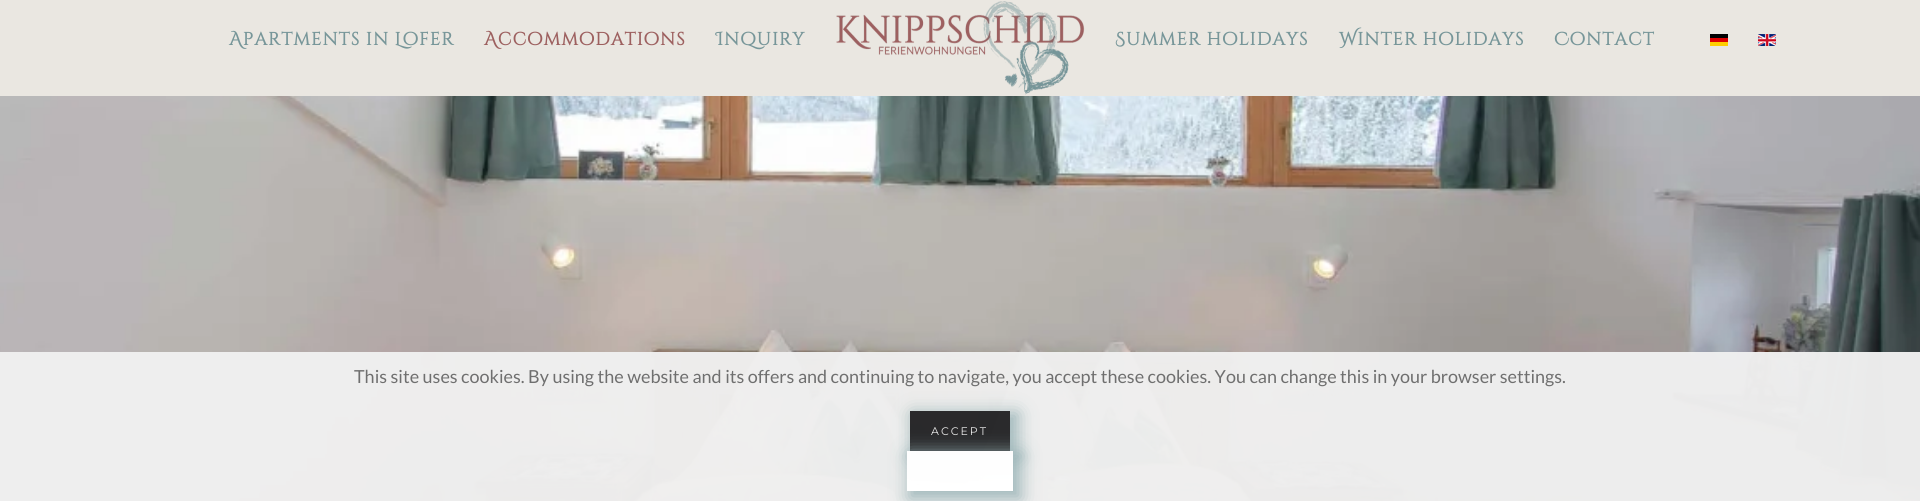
import math
import cairo


def use_color(cr, r, g, b):
  cr.set_source_rgb(r / 255, g / 255, b / 255)

def text(cr, x, y, s, family, size, color, bold=False, italic=False):
  cr.select_font_face(family, cairo.FONT_SLANT_ITALIC if italic else cairo.FONT_SLANT_NORMAL, cairo.FONT_WEIGHT_BOLD if bold else cairo.FONT_WEIGHT_NORMAL)
  cr.set_font_size(size)
  use_color(cr, *color)
  cr.move_to(x, y)
  cr.show_text(s)

def spaced_text(cr, x, y, s, letter, word):
  cr.move_to(x, y)
  for ch in s:
    cr.show_text(ch)
    cr.rel_move_to(letter + word * (ch == ' '), 0)

def round_rect(cr, x, y, w, h, r):
  cr.new_sub_path()
  for i, (u, v) in enumerate([(x + w - r, y + h - r), (x + r, y + h - r), (x + r, y + r), (x + w - r, y + r)]):
    cr.arc(u, v, r, i * math.pi / 2, (i + 1) * math.pi / 2)
  cr.close_path()

def shadow(cr, x, y, w, h, r, blur, alpha):
  cr.push_group_with_content(cairo.CONTENT_ALPHA)
  cr.set_operator(cairo.OPERATOR_SOURCE)
  for i in range(15, -16, -2):
    e = blur * i / 6
    if min(w, h) + 2 * e > 0:
      cr.set_source_rgba(0, 0, 0, alpha * math.erfc((i - 1) / 8.5) / 2)
      round_rect(cr, x - e, y - e, w + 2 * e, h + 2 * e, max(0, min(r + e + blur * .6, min(w, h) / 2 + e)))
      cr.fill()
  cr.mask(cr.pop_group())

def picture(cr, path, x, y, w, h):
  cr.save()
  cr.set_source_surface(cairo.ImageSurface.create_from_png(path), x, y)
  cr.rectangle(x, y, w, h)
  cr.fill()
  cr.restore()

def draw(cr):
  use_color(cr, 234, 231, 225)
  cr.paint()
  picture(cr, "img_01.png", 836, 1, 249, 94)
  picture(cr, "img_02.png", 1710, 34, 18, 12)
  picture(cr, "img_03.png", 1758, 34, 18, 12)
  picture(cr, "img_04.png", 0, 96, 1920, 405)
  cr.set_source_rgba(0.941, 0.941, 0.941, 0.97)
  cr.rectangle(0, 352, 1920, 149)
  cr.fill()
  cr.save()
  cr.set_fill_rule(cairo.FILL_RULE_EVEN_ODD)
  cr.new_path()
  cr.move_to(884, 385)
  cr.line_to(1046, 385)
  cr.line_to(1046, 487)
  cr.line_to(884, 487)
  cr.close_path()
  cr.move_to(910, 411)
  cr.line_to(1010, 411)
  cr.line_to(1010, 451)
  cr.line_to(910, 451)
  cr.close_path()
  cr.clip()
  use_color(cr, 154, 180, 183)
  shadow(cr, 912, 413, 106, 46, 0, 9, 0.97)
  cr.restore()
  cr.set_source_rgba(0.141, 0.141, 0.153, 0.97)
  cr.rectangle(910, 411, 100, 40)
  cr.fill()
  cr.save()
  cr.set_fill_rule(cairo.FILL_RULE_EVEN_ODD)
  cr.new_path()
  cr.move_to(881, 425)
  cr.line_to(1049, 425)
  cr.line_to(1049, 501)
  cr.line_to(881, 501)
  cr.close_path()
  cr.move_to(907, 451)
  cr.line_to(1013, 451)
  cr.line_to(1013, 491)
  cr.line_to(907, 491)
  cr.close_path()
  cr.clip()
  use_color(cr, 154, 180, 183)
  shadow(cr, 909, 453, 112, 46, 0, 9, 0.97)
  cr.restore()
  cr.set_source_rgba(1, 1, 1, 0.97)
  cr.rectangle(907, 451, 106, 40)
  cr.fill()
  cr.select_font_face("Cinzel Decorative", cairo.FONT_SLANT_NORMAL, cairo.FONT_WEIGHT_BOLD)
  cr.set_font_size(18)
  use_color(cr, 119, 150, 153)
  spaced_text(cr, 229, 45, "Apartments in Lofer", 1, 0)
  use_color(cr, 157, 96, 95)
  spaced_text(cr, 484, 45, "Accommodations", 1, 0)
  use_color(cr, 119, 150, 153)
  spaced_text(cr, 716, 45, "Inquiry", 1, 0)
  spaced_text(cr, 1115, 45, "Summer holidays", 1, 0)
  spaced_text(cr, 1339, 45, "Winter holidays", 1, 0)
  spaced_text(cr, 1554, 45, "Contact", 1, 0)
  text(cr, 354, 383, "This site uses cookies. By using the website and its offers and continuing to navigate, you accept these cookies. You can change this in your browser settings.", "Lato", 18, (111, 111, 111))
  cr.select_font_face("Montserrat Thin")
  cr.set_font_size(11)
  use_color(cr, 232, 232, 232)
  spaced_text(cr, 931, 435, "ACCEPT", 2, 0)


surface = cairo.ImageSurface(cairo.FORMAT_RGB24, 1920, 501)
cr = cairo.Context(surface)
options = cairo.FontOptions()
options.set_hint_metrics(cairo.HINT_METRICS_OFF)
options.set_hint_style(cairo.HINT_STYLE_NONE)
cr.set_font_options(options)
cr.set_miter_limit(4)
draw(cr)
surface.write_to_png("out.png")
